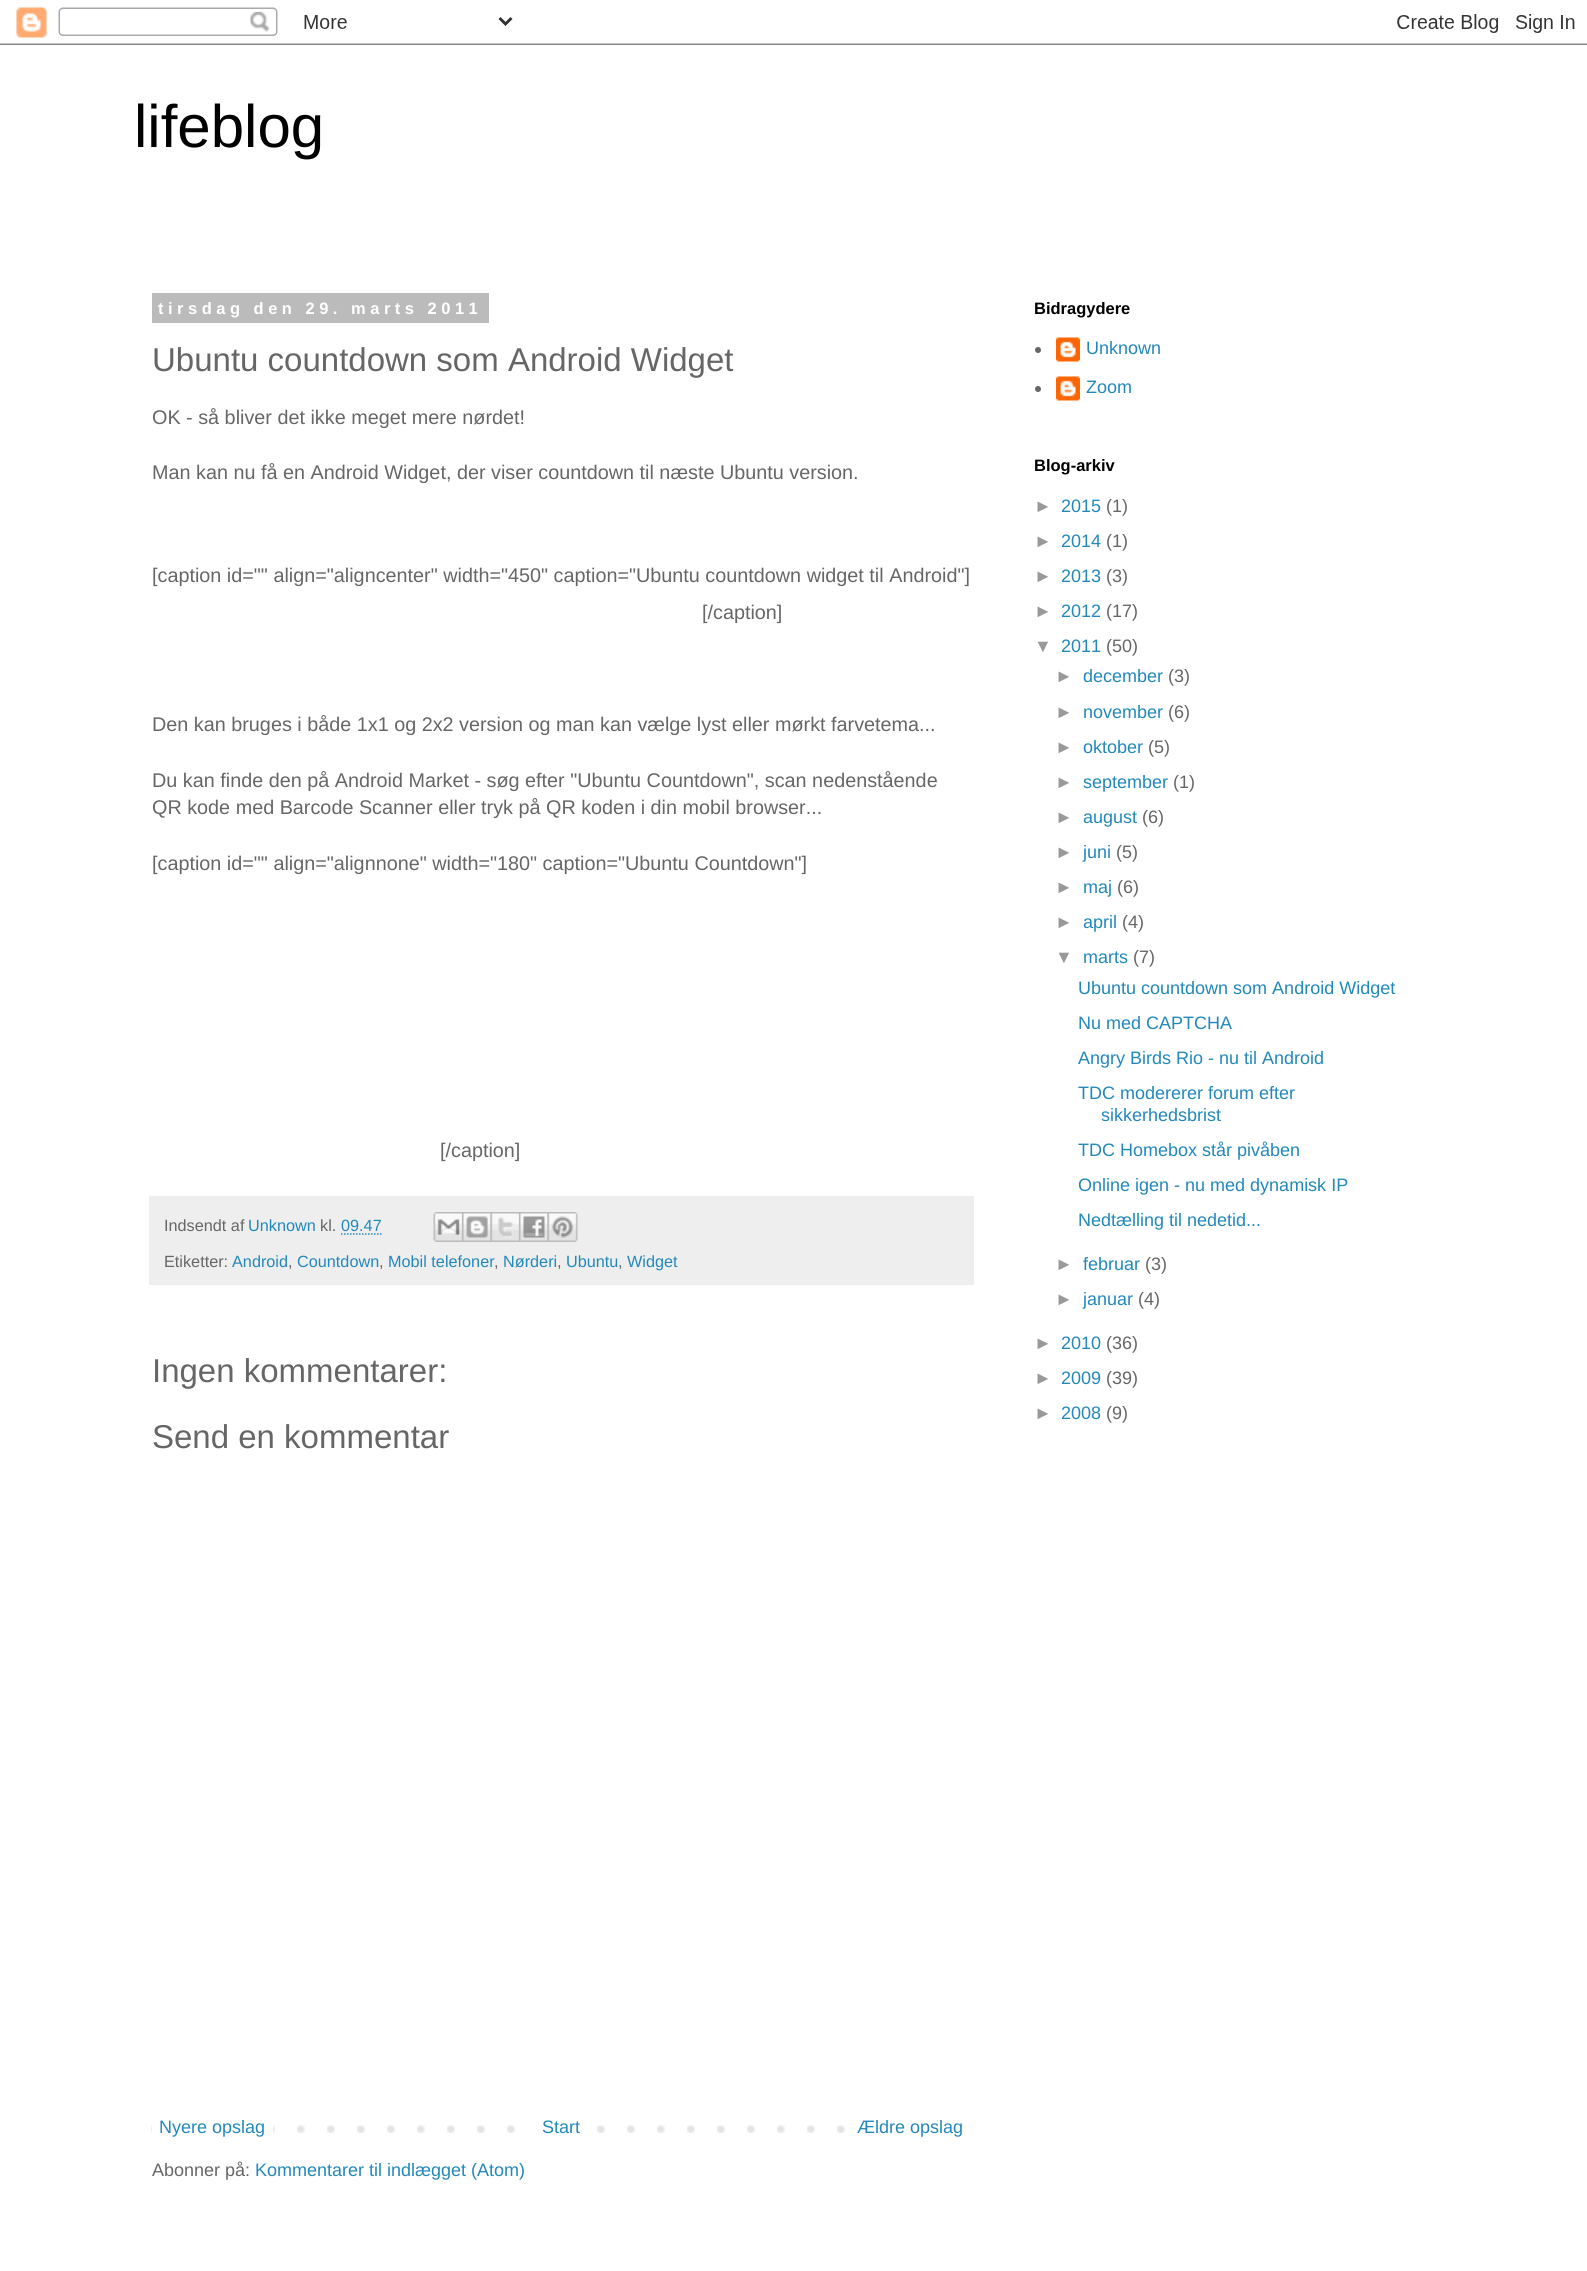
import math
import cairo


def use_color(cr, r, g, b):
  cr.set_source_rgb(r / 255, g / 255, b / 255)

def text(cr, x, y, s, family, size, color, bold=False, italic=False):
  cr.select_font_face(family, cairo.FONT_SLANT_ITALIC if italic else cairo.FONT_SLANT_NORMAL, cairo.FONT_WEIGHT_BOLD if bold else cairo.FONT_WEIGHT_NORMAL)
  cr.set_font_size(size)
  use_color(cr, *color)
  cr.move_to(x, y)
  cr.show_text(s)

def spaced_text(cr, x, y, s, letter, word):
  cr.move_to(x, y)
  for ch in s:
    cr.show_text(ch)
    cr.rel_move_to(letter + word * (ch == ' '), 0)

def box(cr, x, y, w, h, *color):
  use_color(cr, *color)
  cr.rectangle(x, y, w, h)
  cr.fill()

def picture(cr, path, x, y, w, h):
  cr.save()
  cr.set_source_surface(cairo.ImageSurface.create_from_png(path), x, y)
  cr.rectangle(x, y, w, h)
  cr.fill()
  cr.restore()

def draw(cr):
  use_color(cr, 255, 255, 255)
  cr.paint()
  picture(cr, "img_01.png", 0, 7, 1587, 38)
  box(cr, 152, 293, 337, 30, 187, 187, 187)
  box(cr, 149, 1196, 825, 89, 238, 238, 238)
  cr.new_path()
  cr.move_to(341, 1234)
  cr.line_to(381.5, 1234)
  use_color(cr, 34, 136, 187)
  cr.set_line_width(1.5)
  cr.set_dash([1.5, 1.5])
  cr.stroke()
  picture(cr, "img_02.png", 433, 1212, 29, 30)
  picture(cr, "img_03.png", 462, 1212, 29, 30)
  picture(cr, "img_04.png", 490, 1212, 29, 30)
  picture(cr, "img_05.png", 519, 1212, 29, 30)
  picture(cr, "img_06.png", 547, 1212, 31, 30)
  picture(cr, "img_07.png", 151, 2125, 694, 8)
  box(cr, 152, 2125, 121, 8, 255, 255, 255)
  box(cr, 536, 2125, 40, 8, 255, 255, 255)
  use_color(cr, 102, 102, 102)
  cr.arc(1038, 350, 3, 0, 2 * math.pi)
  cr.fill()
  picture(cr, "img_08.png", 1056, 337, 24, 25)
  cr.arc(1038, 389, 3, 0, 2 * math.pi)
  cr.fill()
  picture(cr, "img_08.png", 1056, 376, 24, 25)
  text(cr, 134, 147, "lifeblog", "Liberation Sans", 60, (0, 0, 0))
  cr.select_font_face("Liberation Sans", cairo.FONT_SLANT_NORMAL, cairo.FONT_WEIGHT_BOLD)
  cr.set_font_size(16.5)
  use_color(cr, 255, 255, 255)
  spaced_text(cr, 158, 314, "tirsdag den 29. marts 2011", 4.5, 0)
  text(cr, 152, 371, "Ubuntu countdown som Android Widget", "Liberation Sans", 33, (102, 102, 102))
  text(cr, 152, 424, "OK - så bliver det ikke meget mere nørdet!", "Liberation Sans", 19.8, (102, 102, 102))
  text(cr, 152, 479, "Man kan nu få en Android Widget, der viser countdown til næste Ubuntu version.", "Liberation Sans", 19.8, (102, 102, 102))
  text(cr, 152, 582, "[caption id=\"\" align=\"aligncenter\" width=\"450\" caption=\"Ubuntu countdown widget til Android\"]", "Liberation Sans", 19.8, (102, 102, 102))
  text(cr, 702, 619, "[/caption]", "Liberation Sans", 19.8, (102, 102, 102))
  text(cr, 152, 731, "Den kan bruges i både 1x1 og 2x2 version og man kan vælge lyst eller mørkt farvetema...", "Liberation Sans", 19.8, (102, 102, 102))
  text(cr, 152, 787, "Du kan finde den på Android Market - søg efter \"Ubuntu Countdown\", scan nedenstående", "Liberation Sans", 19.8, (102, 102, 102))
  text(cr, 152, 814, "QR kode med Barcode Scanner eller tryk på QR koden i din mobil browser...", "Liberation Sans", 19.8, (102, 102, 102))
  text(cr, 152, 870, "[caption id=\"\" align=\"alignnone\" width=\"180\" caption=\"Ubuntu Countdown\"]", "Liberation Sans", 19.8, (102, 102, 102))
  text(cr, 440, 1157, "[/caption]", "Liberation Sans", 19.8, (102, 102, 102))
  text(cr, 164, 1231, "Indsendt af", "Liberation Sans", 16.25, (102, 102, 102))
  text(cr, 248, 1231, "Unknown", "Liberation Sans", 16.25, (34, 136, 187))
  text(cr, 320, 1231, "kl.", "Liberation Sans", 16.25, (102, 102, 102))
  text(cr, 341, 1231, "09.47", "Liberation Sans", 16.25, (34, 136, 187))
  text(cr, 164, 1267, "Etiketter:", "Liberation Sans", 16.25, (102, 102, 102))
  text(cr, 232, 1267, "Android", "Liberation Sans", 16.25, (34, 136, 187))
  text(cr, 288, 1267, ",", "Liberation Sans", 16.25, (102, 102, 102))
  text(cr, 297, 1267, "Countdown", "Liberation Sans", 16.25, (34, 136, 187))
  text(cr, 379, 1267, ",", "Liberation Sans", 16.25, (102, 102, 102))
  text(cr, 388, 1267, "Mobil telefoner", "Liberation Sans", 16.25, (34, 136, 187))
  text(cr, 494, 1267, ",", "Liberation Sans", 16.25, (102, 102, 102))
  text(cr, 503, 1267, "Nørderi", "Liberation Sans", 16.25, (34, 136, 187))
  text(cr, 557, 1267, ",", "Liberation Sans", 16.25, (102, 102, 102))
  text(cr, 566, 1267, "Ubuntu", "Liberation Sans", 16.25, (34, 136, 187))
  text(cr, 618, 1267, ",", "Liberation Sans", 16.25, (102, 102, 102))
  text(cr, 627, 1267, "Widget", "Liberation Sans", 16.25, (34, 136, 187))
  text(cr, 152, 1382, "Ingen kommentarer:", "Liberation Sans", 33, (102, 102, 102))
  text(cr, 152, 1448, "Send en kommentar", "Liberation Sans", 33, (102, 102, 102))
  text(cr, 159, 2133, "Nyere opslag", "Liberation Sans", 18, (34, 136, 187))
  text(cr, 542, 2133, "Start", "Liberation Sans", 18, (34, 136, 187))
  text(cr, 857, 2133, "Ældre opslag", "Liberation Sans", 18, (34, 136, 187))
  text(cr, 152, 2176, "Abonner på:", "Liberation Sans", 18, (102, 102, 102))
  text(cr, 255, 2176, "Kommentarer til indlægget (Atom)", "Liberation Sans", 18, (34, 136, 187))
  text(cr, 1034, 314, "Bidragydere", "Liberation Sans", 16.5, (0, 0, 0), bold=True)
  text(cr, 1086, 354, "Unknown", "Liberation Sans", 18, (34, 136, 187))
  text(cr, 1086, 393, "Zoom", "Liberation Sans", 18, (34, 136, 187))
  text(cr, 1034, 471, "Blog-arkiv", "Liberation Sans", 16.5, (0, 0, 0), bold=True)
  text(cr, 1034, 512, "►", "Liberation Sans", 18, (153, 153, 153))
  text(cr, 1061, 512, "2015", "Liberation Sans", 18, (34, 136, 187))
  text(cr, 1106, 512, "(1)", "Liberation Sans", 18, (102, 102, 102))
  text(cr, 1034, 547, "►", "Liberation Sans", 18, (153, 153, 153))
  text(cr, 1061, 547, "2014", "Liberation Sans", 18, (34, 136, 187))
  text(cr, 1106, 547, "(1)", "Liberation Sans", 18, (102, 102, 102))
  text(cr, 1034, 582, "►", "Liberation Sans", 18, (153, 153, 153))
  text(cr, 1061, 582, "2013", "Liberation Sans", 18, (34, 136, 187))
  text(cr, 1106, 582, "(3)", "Liberation Sans", 18, (102, 102, 102))
  text(cr, 1034, 617, "►", "Liberation Sans", 18, (153, 153, 153))
  text(cr, 1061, 617, "2012", "Liberation Sans", 18, (34, 136, 187))
  text(cr, 1106, 617, "(17)", "Liberation Sans", 18, (102, 102, 102))
  text(cr, 1034, 652, "▼", "Liberation Sans", 18, (153, 153, 153))
  text(cr, 1061, 652, "2011", "Liberation Sans", 18, (34, 136, 187))
  text(cr, 1106, 652, "(50)", "Liberation Sans", 18, (102, 102, 102))
  text(cr, 1055, 682, "►", "Liberation Sans", 18, (153, 153, 153))
  text(cr, 1083, 682, "december", "Liberation Sans", 18, (34, 136, 187))
  text(cr, 1168, 682, "(3)", "Liberation Sans", 18, (102, 102, 102))
  text(cr, 1055, 718, "►", "Liberation Sans", 18, (153, 153, 153))
  text(cr, 1083, 718, "november", "Liberation Sans", 18, (34, 136, 187))
  text(cr, 1168, 718, "(6)", "Liberation Sans", 18, (102, 102, 102))
  text(cr, 1055, 753, "►", "Liberation Sans", 18, (153, 153, 153))
  text(cr, 1083, 753, "oktober", "Liberation Sans", 18, (34, 136, 187))
  text(cr, 1148, 753, "(5)", "Liberation Sans", 18, (102, 102, 102))
  text(cr, 1055, 788, "►", "Liberation Sans", 18, (153, 153, 153))
  text(cr, 1083, 788, "september", "Liberation Sans", 18, (34, 136, 187))
  text(cr, 1173, 788, "(1)", "Liberation Sans", 18, (102, 102, 102))
  text(cr, 1055, 823, "►", "Liberation Sans", 18, (153, 153, 153))
  text(cr, 1083, 823, "august", "Liberation Sans", 18, (34, 136, 187))
  text(cr, 1142, 823, "(6)", "Liberation Sans", 18, (102, 102, 102))
  text(cr, 1055, 858, "►", "Liberation Sans", 18, (153, 153, 153))
  text(cr, 1083, 858, "juni", "Liberation Sans", 18, (34, 136, 187))
  text(cr, 1116, 858, "(5)", "Liberation Sans", 18, (102, 102, 102))
  text(cr, 1055, 893, "►", "Liberation Sans", 18, (153, 153, 153))
  text(cr, 1083, 893, "maj", "Liberation Sans", 18, (34, 136, 187))
  text(cr, 1117, 893, "(6)", "Liberation Sans", 18, (102, 102, 102))
  text(cr, 1055, 928, "►", "Liberation Sans", 18, (153, 153, 153))
  text(cr, 1083, 928, "april", "Liberation Sans", 18, (34, 136, 187))
  text(cr, 1122, 928, "(4)", "Liberation Sans", 18, (102, 102, 102))
  text(cr, 1055, 963, "▼", "Liberation Sans", 18, (153, 153, 153))
  text(cr, 1083, 963, "marts", "Liberation Sans", 18, (34, 136, 187))
  text(cr, 1133, 963, "(7)", "Liberation Sans", 18, (102, 102, 102))
  text(cr, 1078, 994, "Ubuntu countdown som Android Widget", "Liberation Sans", 18, (34, 136, 187))
  text(cr, 1078, 1029, "Nu med CAPTCHA", "Liberation Sans", 18, (34, 136, 187))
  text(cr, 1078, 1064, "Angry Birds Rio - nu til Android", "Liberation Sans", 18, (34, 136, 187))
  text(cr, 1078, 1099, "TDC modererer forum efter", "Liberation Sans", 18, (34, 136, 187))
  text(cr, 1101, 1121, "sikkerhedsbrist", "Liberation Sans", 18, (34, 136, 187))
  text(cr, 1078, 1156, "TDC Homebox står pivåben", "Liberation Sans", 18, (34, 136, 187))
  text(cr, 1078, 1191, "Online igen - nu med dynamisk IP", "Liberation Sans", 18, (34, 136, 187))
  text(cr, 1078, 1226, "Nedtælling til nedetid...", "Liberation Sans", 18, (34, 136, 187))
  text(cr, 1055, 1270, "►", "Liberation Sans", 18, (153, 153, 153))
  text(cr, 1083, 1270, "februar", "Liberation Sans", 18, (34, 136, 187))
  text(cr, 1145, 1270, "(3)", "Liberation Sans", 18, (102, 102, 102))
  text(cr, 1055, 1305, "►", "Liberation Sans", 18, (153, 153, 153))
  text(cr, 1083, 1305, "januar", "Liberation Sans", 18, (34, 136, 187))
  text(cr, 1138, 1305, "(4)", "Liberation Sans", 18, (102, 102, 102))
  text(cr, 1034, 1349, "►", "Liberation Sans", 18, (153, 153, 153))
  text(cr, 1061, 1349, "2010", "Liberation Sans", 18, (34, 136, 187))
  text(cr, 1106, 1349, "(36)", "Liberation Sans", 18, (102, 102, 102))
  text(cr, 1034, 1384, "►", "Liberation Sans", 18, (153, 153, 153))
  text(cr, 1061, 1384, "2009", "Liberation Sans", 18, (34, 136, 187))
  text(cr, 1106, 1384, "(39)", "Liberation Sans", 18, (102, 102, 102))
  text(cr, 1034, 1419, "►", "Liberation Sans", 18, (153, 153, 153))
  text(cr, 1061, 1419, "2008", "Liberation Sans", 18, (34, 136, 187))
  text(cr, 1106, 1419, "(9)", "Liberation Sans", 18, (102, 102, 102))


surface = cairo.ImageSurface(cairo.FORMAT_RGB24, 1587, 2271)
cr = cairo.Context(surface)
options = cairo.FontOptions()
options.set_hint_metrics(cairo.HINT_METRICS_OFF)
options.set_hint_style(cairo.HINT_STYLE_NONE)
cr.set_font_options(options)
cr.set_miter_limit(4)
draw(cr)
surface.write_to_png("out.png")
